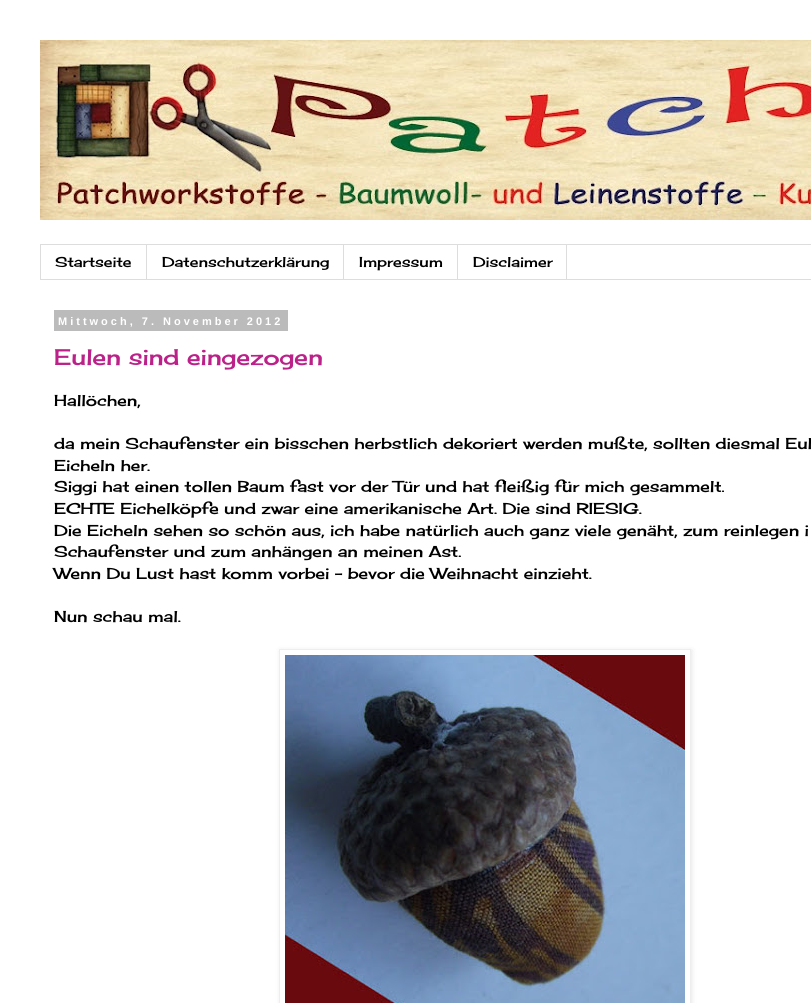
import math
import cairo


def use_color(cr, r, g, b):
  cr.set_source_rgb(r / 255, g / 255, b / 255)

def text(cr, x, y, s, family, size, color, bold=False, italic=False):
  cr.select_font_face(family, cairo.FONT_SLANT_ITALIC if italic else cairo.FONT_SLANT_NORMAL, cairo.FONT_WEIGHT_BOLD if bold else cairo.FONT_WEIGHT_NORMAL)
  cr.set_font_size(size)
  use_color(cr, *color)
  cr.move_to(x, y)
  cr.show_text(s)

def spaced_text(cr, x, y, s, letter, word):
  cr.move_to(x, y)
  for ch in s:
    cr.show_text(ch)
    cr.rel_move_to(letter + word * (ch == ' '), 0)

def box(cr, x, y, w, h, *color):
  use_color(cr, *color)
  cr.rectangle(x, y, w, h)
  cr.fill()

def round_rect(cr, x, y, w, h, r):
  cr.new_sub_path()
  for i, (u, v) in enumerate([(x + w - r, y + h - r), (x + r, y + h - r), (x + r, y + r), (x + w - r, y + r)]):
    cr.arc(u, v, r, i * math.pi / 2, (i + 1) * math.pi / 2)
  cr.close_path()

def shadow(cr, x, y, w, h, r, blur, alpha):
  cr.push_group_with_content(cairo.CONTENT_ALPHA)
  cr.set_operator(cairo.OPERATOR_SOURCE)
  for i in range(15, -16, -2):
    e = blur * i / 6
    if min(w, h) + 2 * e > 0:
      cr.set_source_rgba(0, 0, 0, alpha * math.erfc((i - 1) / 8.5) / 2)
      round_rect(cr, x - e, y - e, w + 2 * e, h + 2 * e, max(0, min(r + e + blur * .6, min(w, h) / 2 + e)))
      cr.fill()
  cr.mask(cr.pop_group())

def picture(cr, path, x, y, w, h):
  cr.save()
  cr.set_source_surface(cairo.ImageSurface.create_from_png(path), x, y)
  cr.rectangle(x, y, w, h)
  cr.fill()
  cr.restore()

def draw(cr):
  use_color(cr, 255, 255, 255)
  cr.paint()
  picture(cr, "img_01.png", 40, 40, 771, 180)
  cr.rectangle(40.5, 244.5, 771, 35)
  use_color(cr, 221, 221, 221)
  cr.set_line_width(1)
  cr.stroke()
  box(cr, 146, 245, 1, 34, 221, 221, 221)
  box(cr, 343, 245, 1, 34, 221, 221, 221)
  box(cr, 457, 245, 1, 34, 221, 221, 221)
  box(cr, 566, 245, 1, 34, 221, 221, 221)
  box(cr, 54, 310, 234, 21, 187, 187, 187)
  cr.save()
  cr.set_fill_rule(cairo.FILL_RULE_EVEN_ODD)
  cr.new_path()
  cr.move_to(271, 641)
  cr.line_to(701, 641)
  cr.line_to(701, 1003)
  cr.line_to(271, 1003)
  cr.close_path()
  cr.move_to(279, 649)
  cr.line_to(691, 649)
  cr.line_to(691, 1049)
  cr.line_to(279, 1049)
  cr.close_path()
  cr.clip()
  use_color(cr, 0, 0, 0)
  shadow(cr, 280, 650, 412, 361, 0, 2.5, 0.1)
  cr.restore()
  cr.rectangle(279.5, 649.5, 411, 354)
  use_color(cr, 238, 238, 238)
  cr.stroke()
  picture(cr, "img_02.png", 285, 655, 400, 348)
  text(cr, 55, 267, "Startseite", "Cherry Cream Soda", 14, (0, 0, 0))
  text(cr, 162, 267, "Datenschutzerklärung", "Cherry Cream Soda", 14, (0, 0, 0))
  text(cr, 359, 267, "Impressum", "Cherry Cream Soda", 14, (0, 0, 0))
  text(cr, 473, 267, "Disclaimer", "Cherry Cream Soda", 14, (0, 0, 0))
  cr.select_font_face("Liberation Sans", cairo.FONT_SLANT_NORMAL, cairo.FONT_WEIGHT_BOLD)
  cr.set_font_size(11)
  use_color(cr, 255, 255, 255)
  spaced_text(cr, 58, 325, "Mittwoch, 7. November 2012", 3, 0)
  text(cr, 54, 365, "Eulen sind eingezogen", "Cherry Cream Soda", 22, (187, 33, 136))
  text(cr, 54, 406, "Hallöchen,", "Cherry Cream Soda", 15.4, (0, 0, 0))
  text(cr, 54, 449, "da mein Schaufenster ein bisschen herbstlich dekoriert werden mußte, sollten diesmal Eul", "Cherry Cream Soda", 15.4, (0, 0, 0))
  text(cr, 54, 471, "Eicheln her.", "Cherry Cream Soda", 15.4, (0, 0, 0))
  text(cr, 54, 492, "Siggi hat einen tollen Baum fast vor der Tür und hat fleißig für mich gesammelt.", "Cherry Cream Soda", 15.4, (0, 0, 0))
  text(cr, 54, 514, "ECHTE Eichelköpfe und zwar eine amerikanische Art. Die sind RIESIG.", "Cherry Cream Soda", 15.4, (0, 0, 0))
  text(cr, 54, 536, "Die Eicheln sehen so schön aus, ich habe natürlich auch ganz viele genäht, zum reinlegen i", "Cherry Cream Soda", 15.4, (0, 0, 0))
  text(cr, 54, 557, "Schaufenster und zum anhängen an meinen Ast.", "Cherry Cream Soda", 15.4, (0, 0, 0))
  text(cr, 54, 579, "Wenn Du Lust hast komm vorbei - bevor die Weihnacht einzieht.", "Cherry Cream Soda", 15.4, (0, 0, 0))
  text(cr, 54, 622, "Nun schau mal.", "Cherry Cream Soda", 15.4, (0, 0, 0))


surface = cairo.ImageSurface(cairo.FORMAT_RGB24, 811, 1003)
cr = cairo.Context(surface)
options = cairo.FontOptions()
options.set_hint_metrics(cairo.HINT_METRICS_OFF)
options.set_hint_style(cairo.HINT_STYLE_NONE)
cr.set_font_options(options)
cr.set_miter_limit(4)
draw(cr)
surface.write_to_png("out.png")
